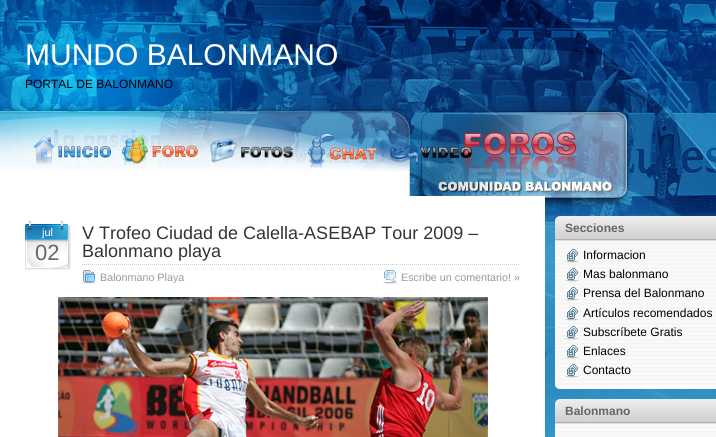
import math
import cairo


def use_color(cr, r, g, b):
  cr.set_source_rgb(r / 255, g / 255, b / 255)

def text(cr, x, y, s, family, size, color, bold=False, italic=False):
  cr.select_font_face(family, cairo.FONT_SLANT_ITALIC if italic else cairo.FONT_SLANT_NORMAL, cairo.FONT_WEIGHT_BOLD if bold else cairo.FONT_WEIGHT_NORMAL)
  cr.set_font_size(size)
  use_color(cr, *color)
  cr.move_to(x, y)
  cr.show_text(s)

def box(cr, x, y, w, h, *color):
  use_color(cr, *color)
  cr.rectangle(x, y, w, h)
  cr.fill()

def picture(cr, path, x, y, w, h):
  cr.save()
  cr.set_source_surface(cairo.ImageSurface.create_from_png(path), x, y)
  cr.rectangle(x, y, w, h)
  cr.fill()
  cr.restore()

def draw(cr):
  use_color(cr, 255, 255, 255)
  cr.paint()
  picture(cr, "img_01.png", 0, 0, 716, 437)
  picture(cr, "img_02.png", 33, 136, 78, 29)
  picture(cr, "img_03.png", 121, 137, 77, 29)
  picture(cr, "img_04.png", 209, 139, 85, 24)
  picture(cr, "img_05.png", 308, 133, 69, 36)
  picture(cr, "img_06.png", 389, 143, 83, 22)
  box(cr, 0, 196, 545, 241, 255, 255, 255)
  picture(cr, "img_07.png", 25, 221, 46, 49)
  cr.new_path()
  cr.move_to(82, 264.5)
  cr.line_to(520, 264.5)
  use_color(cr, 204, 204, 204)
  cr.set_line_width(1)
  cr.set_dash([1, 1])
  cr.stroke()
  picture(cr, "img_08.png", 82, 270, 14, 14)
  picture(cr, "img_09.png", 383, 270, 14, 14)
  picture(cr, "img_10.png", 58, 297, 430, 140)
  picture(cr, "img_11.png", 555, 216, 161, 25)
  picture(cr, "img_12.png", 555, 241, 161, 148)
  picture(cr, "img_13.png", 565, 249, 14, 14)
  picture(cr, "img_14.png", 565, 268, 14, 14)
  picture(cr, "img_15.png", 565, 287, 14, 14)
  picture(cr, "img_16.png", 565, 307, 14, 14)
  picture(cr, "img_17.png", 565, 326, 14, 14)
  picture(cr, "img_18.png", 565, 345, 14, 14)
  picture(cr, "img_19.png", 565, 364, 14, 14)
  picture(cr, "img_20.png", 555, 399, 161, 25)
  picture(cr, "img_21.png", 555, 424, 161, 13)
  text(cr, 25, 65, "MUNDO BALONMANO", "Liberation Sans", 30, (255, 255, 255))
  text(cr, 25, 88, "PORTAL DE BALONMANO", "Liberation Sans", 12, (0, 0, 0))
  text(cr, 42, 236, "jul", "Liberation Sans", 11, (255, 255, 255))
  text(cr, 35, 260, "02", "Liberation Sans", 22, (102, 102, 102))
  text(cr, 82, 239, "V Trofeo Ciudad de Calella-ASEBAP Tour 2009 –", "Liberation Sans", 18, (51, 51, 51))
  text(cr, 82, 257, "Balonmano playa", "Liberation Sans", 18, (51, 51, 51))
  text(cr, 100, 281, "Balonmano Playa", "Liberation Sans", 10.75, (153, 153, 153))
  text(cr, 401, 281, "Escribe un comentario! »", "Liberation Sans", 10.75, (153, 153, 153))
  text(cr, 565, 232, "Secciones", "Liberation Sans", 12, (102, 102, 102), bold=True)
  text(cr, 583, 259, "Informacion", "Liberation Sans", 12, (0, 0, 0))
  text(cr, 583, 278, "Mas balonmano", "Liberation Sans", 12, (0, 0, 0))
  text(cr, 583, 297, "Prensa del Balonmano", "Liberation Sans", 12, (0, 0, 0))
  text(cr, 583, 317, "Artículos recomendados", "Liberation Sans", 12, (0, 0, 0))
  text(cr, 583, 336, "Subscríbete Gratis", "Liberation Sans", 12, (0, 0, 0))
  text(cr, 583, 355, "Enlaces", "Liberation Sans", 12, (0, 0, 0))
  text(cr, 583, 374, "Contacto", "Liberation Sans", 12, (0, 0, 0))
  text(cr, 565, 415, "Balonmano", "Liberation Sans", 12, (102, 102, 102), bold=True)


surface = cairo.ImageSurface(cairo.FORMAT_RGB24, 716, 437)
cr = cairo.Context(surface)
options = cairo.FontOptions()
options.set_hint_metrics(cairo.HINT_METRICS_OFF)
options.set_hint_style(cairo.HINT_STYLE_NONE)
cr.set_font_options(options)
cr.set_miter_limit(4)
draw(cr)
surface.write_to_png("out.png")
